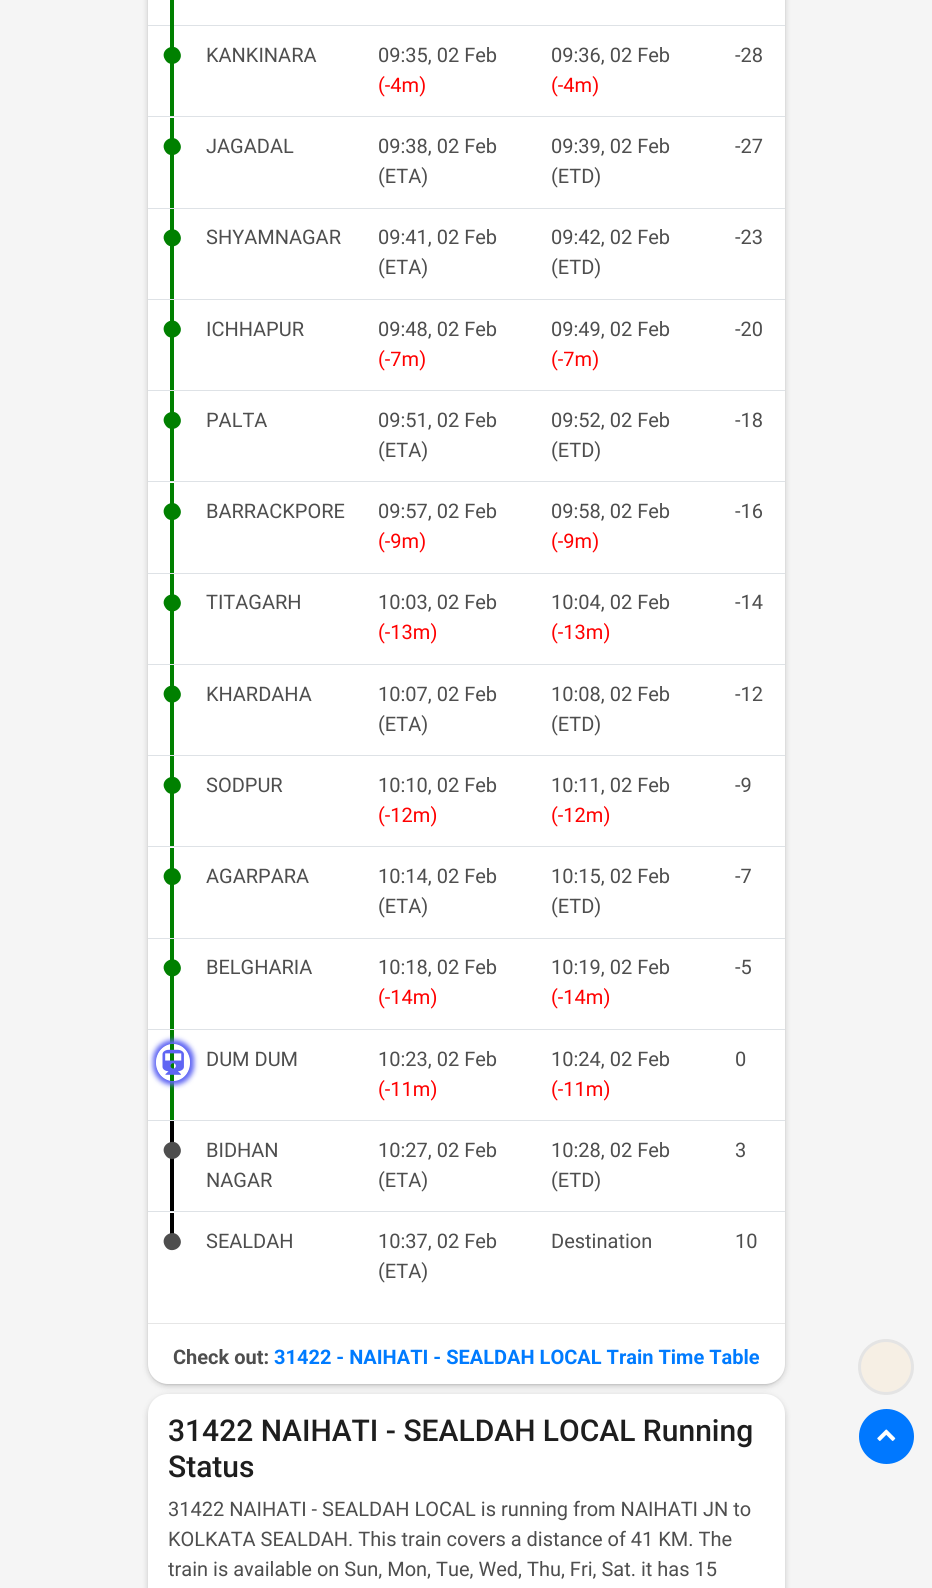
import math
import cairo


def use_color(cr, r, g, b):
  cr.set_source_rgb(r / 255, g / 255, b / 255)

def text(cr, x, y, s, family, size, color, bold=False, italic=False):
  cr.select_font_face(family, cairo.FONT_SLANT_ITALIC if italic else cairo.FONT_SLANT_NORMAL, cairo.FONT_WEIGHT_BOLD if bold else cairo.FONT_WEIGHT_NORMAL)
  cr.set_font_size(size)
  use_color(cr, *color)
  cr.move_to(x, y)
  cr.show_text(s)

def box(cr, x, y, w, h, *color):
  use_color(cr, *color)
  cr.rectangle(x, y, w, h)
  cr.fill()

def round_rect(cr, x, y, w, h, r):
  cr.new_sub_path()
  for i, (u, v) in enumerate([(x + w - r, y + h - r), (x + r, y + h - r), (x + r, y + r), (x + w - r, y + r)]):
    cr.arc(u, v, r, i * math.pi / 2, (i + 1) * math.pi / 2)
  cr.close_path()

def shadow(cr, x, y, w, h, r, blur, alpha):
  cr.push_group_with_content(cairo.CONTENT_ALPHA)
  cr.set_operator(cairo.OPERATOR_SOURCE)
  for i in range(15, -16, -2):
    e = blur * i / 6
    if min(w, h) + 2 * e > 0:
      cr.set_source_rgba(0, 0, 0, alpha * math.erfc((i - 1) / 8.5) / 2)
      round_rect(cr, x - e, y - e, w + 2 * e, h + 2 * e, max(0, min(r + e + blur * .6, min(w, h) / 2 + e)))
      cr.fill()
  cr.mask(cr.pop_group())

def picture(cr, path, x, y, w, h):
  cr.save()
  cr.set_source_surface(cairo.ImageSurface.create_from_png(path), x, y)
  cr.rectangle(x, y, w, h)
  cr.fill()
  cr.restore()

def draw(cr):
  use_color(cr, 245, 245, 245)
  cr.paint()
  use_color(cr, 0, 0, 0)
  shadow(cr, 148, -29, 637, 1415, 20, 3, 0.2)
  shadow(cr, 148, -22, 637, 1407, 20, 0.5, 0.06)
  use_color(cr, 255, 255, 255)
  round_rect(cr, 148, -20, 637, 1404, 20)
  cr.fill()
  box(cr, 148, 25, 637, 1, 222, 226, 230)
  box(cr, 170, 0, 4, 116, 0, 128, 0)
  cr.new_path()
  cr.move_to(179.5, 51)
  cr.curve_to(185.5, 61, 170.5, 69.5, 165, 59.5)
  cr.curve_to(159, 50, 174, 41.5, 179.5, 51)
  cr.close_path()
  cr.fill()
  box(cr, 170, 118, 4, 90, 0, 128, 0)
  cr.new_path()
  cr.move_to(179.5, 142.5)
  cr.curve_to(185.5, 152, 170.5, 160.5, 165, 151)
  cr.curve_to(159, 141, 174, 132.5, 179.5, 142.5)
  cr.close_path()
  cr.fill()
  box(cr, 148, 116, 637, 1, 222, 226, 230)
  box(cr, 170, 209, 4, 90, 0, 128, 0)
  cr.new_path()
  cr.move_to(179.5, 233.5)
  cr.curve_to(185.5, 243.5, 170.5, 252, 165, 242)
  cr.curve_to(159, 232.5, 174, 224, 179.5, 233.5)
  cr.close_path()
  cr.fill()
  box(cr, 148, 208, 637, 1, 222, 226, 230)
  box(cr, 170, 300, 4, 90, 0, 128, 0)
  cr.new_path()
  cr.move_to(179.5, 325)
  cr.curve_to(185.5, 334.5, 170.5, 343, 165, 333.5)
  cr.curve_to(159, 323.5, 174, 315, 179.5, 325)
  cr.close_path()
  cr.fill()
  box(cr, 148, 299, 637, 1, 222, 226, 230)
  box(cr, 170, 391, 4, 90, 0, 128, 0)
  cr.new_path()
  cr.move_to(179.5, 416)
  cr.curve_to(185.5, 426, 170.5, 434.5, 165, 424.5)
  cr.curve_to(159, 415, 174, 406.5, 179.5, 416)
  cr.close_path()
  cr.fill()
  box(cr, 148, 390, 637, 1, 222, 226, 230)
  box(cr, 170, 483, 4, 90, 0, 128, 0)
  cr.new_path()
  cr.move_to(179.5, 507.5)
  cr.curve_to(185.5, 517, 170.5, 525.5, 165, 516)
  cr.curve_to(159, 506, 174, 497.5, 179.5, 507.5)
  cr.close_path()
  cr.fill()
  box(cr, 148, 481, 637, 1, 222, 226, 230)
  box(cr, 170, 574, 4, 90, 0, 128, 0)
  cr.new_path()
  cr.move_to(179.5, 598.5)
  cr.curve_to(185.5, 608.5, 170.5, 617, 165, 607)
  cr.curve_to(159, 597.5, 174, 589, 179.5, 598.5)
  cr.close_path()
  cr.fill()
  box(cr, 148, 573, 637, 1, 222, 226, 230)
  box(cr, 170, 665, 4, 90, 0, 128, 0)
  cr.new_path()
  cr.move_to(179.5, 690)
  cr.curve_to(185.5, 699.5, 170.5, 708, 165, 698.5)
  cr.curve_to(159, 688.5, 174, 680, 179.5, 690)
  cr.close_path()
  cr.fill()
  box(cr, 148, 664, 637, 1, 222, 226, 230)
  box(cr, 170, 756, 4, 90, 0, 128, 0)
  cr.new_path()
  cr.move_to(179.5, 781)
  cr.curve_to(185.5, 791, 170.5, 799.5, 165, 789.5)
  cr.curve_to(159, 780, 174, 771.5, 179.5, 781)
  cr.close_path()
  cr.fill()
  box(cr, 148, 755, 637, 1, 222, 226, 230)
  box(cr, 170, 848, 4, 90, 0, 128, 0)
  cr.new_path()
  cr.move_to(179.5, 872.5)
  cr.curve_to(185.5, 882, 170.5, 890.5, 165, 881)
  cr.curve_to(159, 871, 174, 862.5, 179.5, 872.5)
  cr.close_path()
  cr.fill()
  box(cr, 148, 846, 637, 1, 222, 226, 230)
  box(cr, 170, 939, 4, 90, 0, 128, 0)
  cr.new_path()
  cr.move_to(179.5, 963.5)
  cr.curve_to(185.5, 973.5, 170.5, 982, 165, 972)
  cr.curve_to(159, 962.5, 174, 954, 179.5, 963.5)
  cr.close_path()
  cr.fill()
  box(cr, 148, 938, 637, 1, 222, 226, 230)
  box(cr, 170, 1030, 4, 90, 0, 128, 0)
  cr.save()
  cr.set_fill_rule(cairo.FILL_RULE_EVEN_ODD)
  cr.new_path()
  cr.move_to(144, 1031)
  cr.line_to(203, 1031)
  cr.line_to(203, 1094)
  cr.line_to(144, 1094)
  cr.close_path()
  cr.move_to(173, 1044)
  cr.curve_to(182.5, 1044, 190, 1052, 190, 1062.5)
  cr.curve_to(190, 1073, 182.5, 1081, 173, 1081)
  cr.curve_to(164, 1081, 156, 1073, 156, 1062.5)
  cr.curve_to(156, 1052, 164, 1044, 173, 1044)
  cr.close_path()
  cr.clip()
  use_color(cr, 95, 101, 243)
  shadow(cr, 153, 1040, 41, 45, 20.5, 2.5, 1)
  cr.restore()
  picture(cr, "img_01.png", 162, 1049, 22, 26)
  box(cr, 148, 1029, 637, 1, 222, 226, 230)
  box(cr, 170, 1121, 4, 90, 0, 0, 0)
  use_color(cr, 78, 78, 78)
  cr.new_path()
  cr.move_to(179.5, 1146)
  cr.curve_to(185.5, 1156, 170.5, 1164.5, 165, 1154.5)
  cr.curve_to(159, 1145, 174, 1136.5, 179.5, 1146)
  cr.close_path()
  cr.fill()
  box(cr, 148, 1120, 637, 1, 222, 226, 230)
  box(cr, 170, 1213, 4, 21, 0, 0, 0)
  use_color(cr, 78, 78, 78)
  cr.new_path()
  cr.move_to(179.5, 1237.5)
  cr.curve_to(185.5, 1247, 170.5, 1255.5, 165, 1246)
  cr.curve_to(159, 1236, 174, 1227.5, 179.5, 1237.5)
  cr.close_path()
  cr.fill()
  box(cr, 148, 1211, 637, 1, 222, 226, 230)
  box(cr, 148, 1323, 637, 1, 230, 230, 230)
  use_color(cr, 246, 239, 228)
  cr.arc(886, 1367, 26.5, 0, 2 * math.pi)
  cr.fill_preserve()
  use_color(cr, 228, 228, 228)
  cr.set_line_width(3)
  cr.stroke()
  use_color(cr, 0, 0, 0)
  shadow(cr, 148, 1396, 637, 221, 20, 3, 0.2)
  use_color(cr, 255, 255, 255)
  round_rect(cr, 148, 1394, 637, 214, 20)
  cr.fill()
  use_color(cr, 0, 120, 255)
  cr.arc(886.5, 1436.5, 27.5, 0, 2 * math.pi)
  cr.fill()
  picture(cr, "img_02.png", 877, 1429, 19, 12)
  text(cr, 206, 62, "KANKINARA", "Roboto", 20, (78, 78, 78))
  text(cr, 378, 62, "09:35, 02 Feb", "Roboto", 20, (78, 78, 78))
  text(cr, 378, 92, "(-4m)", "Roboto", 20, (255, 0, 0))
  text(cr, 551, 62, "09:36, 02 Feb", "Roboto", 20, (78, 78, 78))
  text(cr, 551, 92, "(-4m)", "Roboto", 20, (255, 0, 0))
  text(cr, 735, 62, "-28", "Roboto", 20, (78, 78, 78))
  text(cr, 206, 153, "JAGADAL", "Roboto", 20, (78, 78, 78))
  text(cr, 378, 153, "09:38, 02 Feb", "Roboto", 20, (78, 78, 78))
  text(cr, 378, 183, "(ETA)", "Roboto", 20, (78, 78, 78))
  text(cr, 551, 153, "09:39, 02 Feb", "Roboto", 20, (78, 78, 78))
  text(cr, 551, 183, "(ETD)", "Roboto", 20, (78, 78, 78))
  text(cr, 735, 153, "-27", "Roboto", 20, (78, 78, 78))
  text(cr, 206, 244, "SHYAMNAGAR", "Roboto", 20, (78, 78, 78))
  text(cr, 378, 244, "09:41, 02 Feb", "Roboto", 20, (78, 78, 78))
  text(cr, 378, 274, "(ETA)", "Roboto", 20, (78, 78, 78))
  text(cr, 551, 244, "09:42, 02 Feb", "Roboto", 20, (78, 78, 78))
  text(cr, 551, 274, "(ETD)", "Roboto", 20, (78, 78, 78))
  text(cr, 735, 244, "-23", "Roboto", 20, (78, 78, 78))
  text(cr, 206, 336, "ICHHAPUR", "Roboto", 20, (78, 78, 78))
  text(cr, 378, 336, "09:48, 02 Feb", "Roboto", 20, (78, 78, 78))
  text(cr, 378, 366, "(-7m)", "Roboto", 20, (255, 0, 0))
  text(cr, 551, 336, "09:49, 02 Feb", "Roboto", 20, (78, 78, 78))
  text(cr, 551, 366, "(-7m)", "Roboto", 20, (255, 0, 0))
  text(cr, 735, 336, "-20", "Roboto", 20, (78, 78, 78))
  text(cr, 206, 427, "PALTA", "Roboto", 20, (78, 78, 78))
  text(cr, 378, 427, "09:51, 02 Feb", "Roboto", 20, (78, 78, 78))
  text(cr, 378, 457, "(ETA)", "Roboto", 20, (78, 78, 78))
  text(cr, 551, 427, "09:52, 02 Feb", "Roboto", 20, (78, 78, 78))
  text(cr, 551, 457, "(ETD)", "Roboto", 20, (78, 78, 78))
  text(cr, 735, 427, "-18", "Roboto", 20, (78, 78, 78))
  text(cr, 206, 518, "BARRACKPORE", "Roboto", 20, (78, 78, 78))
  text(cr, 378, 518, "09:57, 02 Feb", "Roboto", 20, (78, 78, 78))
  text(cr, 378, 548, "(-9m)", "Roboto", 20, (255, 0, 0))
  text(cr, 551, 518, "09:58, 02 Feb", "Roboto", 20, (78, 78, 78))
  text(cr, 551, 548, "(-9m)", "Roboto", 20, (255, 0, 0))
  text(cr, 735, 518, "-16", "Roboto", 20, (78, 78, 78))
  text(cr, 206, 609, "TITAGARH", "Roboto", 20, (78, 78, 78))
  text(cr, 378, 609, "10:03, 02 Feb", "Roboto", 20, (78, 78, 78))
  text(cr, 378, 639, "(-13m)", "Roboto", 20, (255, 0, 0))
  text(cr, 551, 609, "10:04, 02 Feb", "Roboto", 20, (78, 78, 78))
  text(cr, 551, 639, "(-13m)", "Roboto", 20, (255, 0, 0))
  text(cr, 735, 609, "-14", "Roboto", 20, (78, 78, 78))
  text(cr, 206, 701, "KHARDAHA", "Roboto", 20, (78, 78, 78))
  text(cr, 378, 701, "10:07, 02 Feb", "Roboto", 20, (78, 78, 78))
  text(cr, 378, 731, "(ETA)", "Roboto", 20, (78, 78, 78))
  text(cr, 551, 701, "10:08, 02 Feb", "Roboto", 20, (78, 78, 78))
  text(cr, 551, 731, "(ETD)", "Roboto", 20, (78, 78, 78))
  text(cr, 735, 701, "-12", "Roboto", 20, (78, 78, 78))
  text(cr, 206, 792, "SODPUR", "Roboto", 20, (78, 78, 78))
  text(cr, 378, 792, "10:10, 02 Feb", "Roboto", 20, (78, 78, 78))
  text(cr, 378, 822, "(-12m)", "Roboto", 20, (255, 0, 0))
  text(cr, 551, 792, "10:11, 02 Feb", "Roboto", 20, (78, 78, 78))
  text(cr, 551, 822, "(-12m)", "Roboto", 20, (255, 0, 0))
  text(cr, 735, 792, "-9", "Roboto", 20, (78, 78, 78))
  text(cr, 206, 883, "AGARPARA", "Roboto", 20, (78, 78, 78))
  text(cr, 378, 883, "10:14, 02 Feb", "Roboto", 20, (78, 78, 78))
  text(cr, 378, 913, "(ETA)", "Roboto", 20, (78, 78, 78))
  text(cr, 551, 883, "10:15, 02 Feb", "Roboto", 20, (78, 78, 78))
  text(cr, 551, 913, "(ETD)", "Roboto", 20, (78, 78, 78))
  text(cr, 735, 883, "-7", "Roboto", 20, (78, 78, 78))
  text(cr, 206, 974, "BELGHARIA", "Roboto", 20, (78, 78, 78))
  text(cr, 378, 974, "10:18, 02 Feb", "Roboto", 20, (78, 78, 78))
  text(cr, 378, 1004, "(-14m)", "Roboto", 20, (255, 0, 0))
  text(cr, 551, 974, "10:19, 02 Feb", "Roboto", 20, (78, 78, 78))
  text(cr, 551, 1004, "(-14m)", "Roboto", 20, (255, 0, 0))
  text(cr, 735, 974, "-5", "Roboto", 20, (78, 78, 78))
  text(cr, 206, 1066, "DUM DUM", "Roboto", 20, (78, 78, 78))
  text(cr, 378, 1066, "10:23, 02 Feb", "Roboto", 20, (78, 78, 78))
  text(cr, 378, 1096, "(-11m)", "Roboto", 20, (255, 0, 0))
  text(cr, 551, 1066, "10:24, 02 Feb", "Roboto", 20, (78, 78, 78))
  text(cr, 551, 1096, "(-11m)", "Roboto", 20, (255, 0, 0))
  text(cr, 735, 1066, "0", "Roboto", 20, (78, 78, 78))
  text(cr, 206, 1157, "BIDHAN", "Roboto", 20, (78, 78, 78))
  text(cr, 206, 1187, "NAGAR", "Roboto", 20, (78, 78, 78))
  text(cr, 378, 1157, "10:27, 02 Feb", "Roboto", 20, (78, 78, 78))
  text(cr, 378, 1187, "(ETA)", "Roboto", 20, (78, 78, 78))
  text(cr, 551, 1157, "10:28, 02 Feb", "Roboto", 20, (78, 78, 78))
  text(cr, 551, 1187, "(ETD)", "Roboto", 20, (78, 78, 78))
  text(cr, 735, 1157, "3", "Roboto", 20, (78, 78, 78))
  text(cr, 206, 1248, "SEALDAH", "Roboto", 20, (78, 78, 78))
  text(cr, 378, 1248, "10:37, 02 Feb", "Roboto", 20, (78, 78, 78))
  text(cr, 378, 1278, "(ETA)", "Roboto", 20, (78, 78, 78))
  text(cr, 551, 1248, "Destination", "Roboto", 20, (78, 78, 78))
  text(cr, 735, 1248, "10", "Roboto", 20, (78, 78, 78))
  text(cr, 173, 1364, "Check out:", "Roboto", 20, (78, 78, 78), bold=True)
  text(cr, 274, 1364, "31422 - NAIHATI - SEALDAH LOCAL Train Time Table", "Roboto", 20, (0, 123, 255), bold=True)
  text(cr, 168, 1441, "31422 NAIHATI - SEALDAH LOCAL Running", "Roboto Medium", 30, (30, 30, 30))
  text(cr, 168, 1477, "Status", "Roboto Medium", 30, (30, 30, 30))
  text(cr, 168, 1516, "31422 NAIHATI - SEALDAH LOCAL is running from NAIHATI JN to", "Roboto", 20, (78, 78, 78))
  text(cr, 168, 1546, "KOLKATA SEALDAH. This train covers a distance of 41 KM. The", "Roboto", 20, (78, 78, 78))
  text(cr, 168, 1576, "train is available on Sun, Mon, Tue, Wed, Thu, Fri, Sat. it has 15", "Roboto", 20, (78, 78, 78))


surface = cairo.ImageSurface(cairo.FORMAT_RGB24, 932, 1588)
cr = cairo.Context(surface)
options = cairo.FontOptions()
options.set_hint_metrics(cairo.HINT_METRICS_OFF)
options.set_hint_style(cairo.HINT_STYLE_NONE)
cr.set_font_options(options)
cr.set_miter_limit(4)
draw(cr)
surface.write_to_png("out.png")
